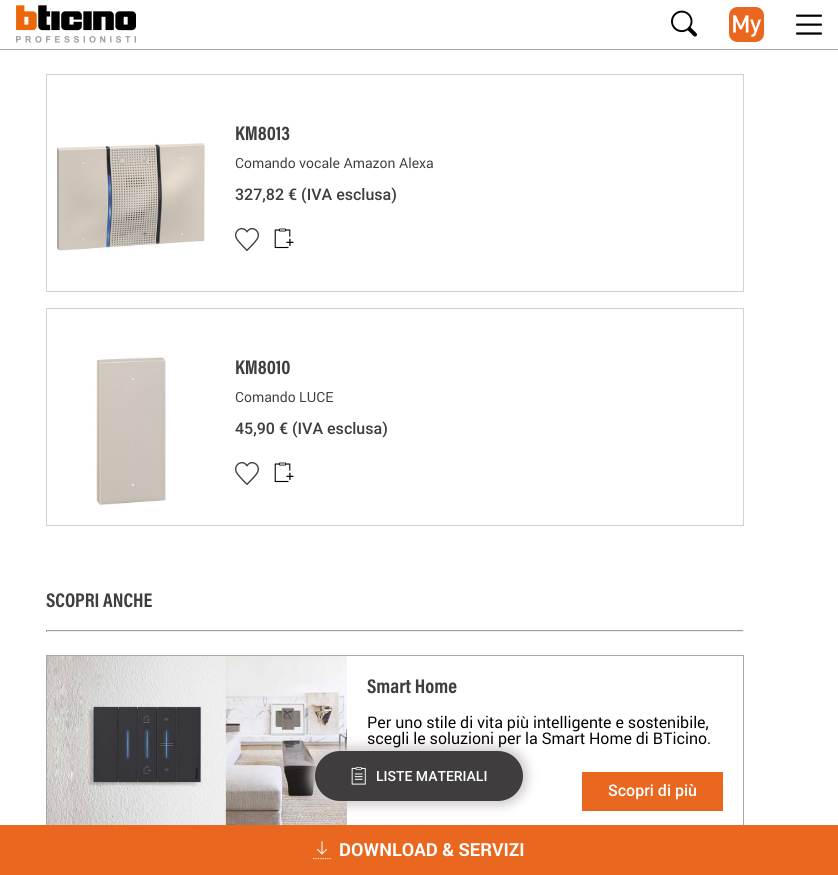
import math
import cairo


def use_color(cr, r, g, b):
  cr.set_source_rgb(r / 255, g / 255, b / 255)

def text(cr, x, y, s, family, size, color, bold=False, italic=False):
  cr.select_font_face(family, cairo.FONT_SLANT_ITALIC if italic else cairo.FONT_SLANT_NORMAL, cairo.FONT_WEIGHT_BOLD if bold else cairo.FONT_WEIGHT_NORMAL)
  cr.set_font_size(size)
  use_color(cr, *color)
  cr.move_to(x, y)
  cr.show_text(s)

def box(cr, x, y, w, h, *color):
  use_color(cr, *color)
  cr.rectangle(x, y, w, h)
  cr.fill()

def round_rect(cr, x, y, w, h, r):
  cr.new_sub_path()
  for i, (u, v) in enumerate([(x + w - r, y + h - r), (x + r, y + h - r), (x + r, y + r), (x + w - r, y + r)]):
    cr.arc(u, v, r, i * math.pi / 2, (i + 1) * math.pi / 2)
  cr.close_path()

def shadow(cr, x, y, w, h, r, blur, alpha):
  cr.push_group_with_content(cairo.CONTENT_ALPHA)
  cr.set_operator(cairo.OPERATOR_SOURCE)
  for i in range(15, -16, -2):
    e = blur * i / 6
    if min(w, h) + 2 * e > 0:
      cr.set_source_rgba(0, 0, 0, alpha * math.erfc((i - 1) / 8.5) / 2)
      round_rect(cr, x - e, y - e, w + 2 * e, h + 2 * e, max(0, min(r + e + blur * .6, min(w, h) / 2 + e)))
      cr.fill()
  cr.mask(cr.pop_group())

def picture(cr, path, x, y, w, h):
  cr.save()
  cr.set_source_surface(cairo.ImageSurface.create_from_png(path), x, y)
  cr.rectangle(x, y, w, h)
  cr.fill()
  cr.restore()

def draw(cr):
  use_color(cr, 255, 255, 255)
  cr.paint()
  box(cr, 0, 49, 838, 1, 170, 166, 165)
  picture(cr, "img_01.png", 16, 5, 120, 38)
  picture(cr, "img_02.png", 671, 10, 26, 27)
  picture(cr, "img_03.png", 729, 7, 35, 35)
  picture(cr, "img_04.png", 796, 14, 26, 21)
  cr.rectangle(46.5, 74.5, 697, 217)
  use_color(cr, 213, 208, 207)
  cr.set_line_width(1)
  cr.stroke()
  picture(cr, "img_05.png", 57, 143, 148, 108)
  picture(cr, "img_06.png", 235, 228, 24, 23)
  picture(cr, "img_07.png", 274, 228, 20, 21)
  cr.rectangle(46.5, 308.5, 697, 217)
  cr.stroke()
  picture(cr, "img_08.png", 95, 357, 71, 148)
  picture(cr, "img_06.png", 235, 462, 24, 23)
  picture(cr, "img_07.png", 274, 462, 20, 21)
  box(cr, 46, 630, 698, 1, 159, 159, 159)
  box(cr, 743, 630, 1, 2, 238, 238, 238)
  box(cr, 46, 631, 698, 1, 238, 238, 238)
  box(cr, 46, 630, 1, 2, 159, 159, 159)
  cr.rectangle(46.5, 655.5, 697, 183)
  use_color(cr, 170, 166, 165)
  cr.stroke()
  picture(cr, "img_09.png", 47, 656, 300, 169)
  box(cr, 582, 772, 141, 39, 234, 103, 32)
  use_color(cr, 213, 208, 207)
  shadow(cr, 310, 746, 218, 60, 30, 5, 1)
  use_color(cr, 63, 61, 61)
  round_rect(cr, 315, 751, 208, 50, 25)
  cr.fill()
  picture(cr, "img_10.png", 351, 767, 15, 18)
  box(cr, 0, 825, 838, 50, 234, 103, 32)
  picture(cr, "img_11.png", 313, 841, 18, 19)
  text(cr, 235, 140, "KM8013", "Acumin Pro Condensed", 20, (63, 61, 61), bold=True)
  text(cr, 235, 168, "Comando vocale Amazon Alexa", "Roboto", 14, (63, 61, 61))
  text(cr, 235, 200, "327,82 € (IVA esclusa)", "Roboto Medium", 16, (63, 61, 61))
  text(cr, 235, 374, "KM8010", "Acumin Pro Condensed", 20, (63, 61, 61), bold=True)
  text(cr, 235, 402, "Comando LUCE", "Roboto", 14, (63, 61, 61))
  text(cr, 235, 434, "45,90 € (IVA esclusa)", "Roboto Medium", 16, (63, 61, 61))
  text(cr, 46, 607, "SCOPRI ANCHE", "Acumin Pro Condensed", 20, (63, 61, 61), bold=True)
  text(cr, 367, 693, "Smart Home", "Acumin Pro Condensed", 20, (63, 61, 61), bold=True)
  text(cr, 367, 728, "Per uno stile di vita più intelligente e sostenibile,", "Roboto", 16, (0, 0, 0))
  text(cr, 367, 744, "scegli le soluzioni per la Smart Home di BTicino.", "Roboto", 16, (0, 0, 0))
  text(cr, 608, 796, "Scopri di più", "Roboto Medium", 16, (255, 255, 255))
  text(cr, 376, 781, "LISTE MATERIALI", "Roboto Medium", 14, (255, 255, 255))
  text(cr, 339, 856, "DOWNLOAD & SERVIZI", "Roboto", 18, (255, 255, 255), bold=True)


surface = cairo.ImageSurface(cairo.FORMAT_RGB24, 838, 875)
cr = cairo.Context(surface)
options = cairo.FontOptions()
options.set_hint_metrics(cairo.HINT_METRICS_OFF)
options.set_hint_style(cairo.HINT_STYLE_NONE)
cr.set_font_options(options)
cr.set_miter_limit(4)
draw(cr)
surface.write_to_png("out.png")
